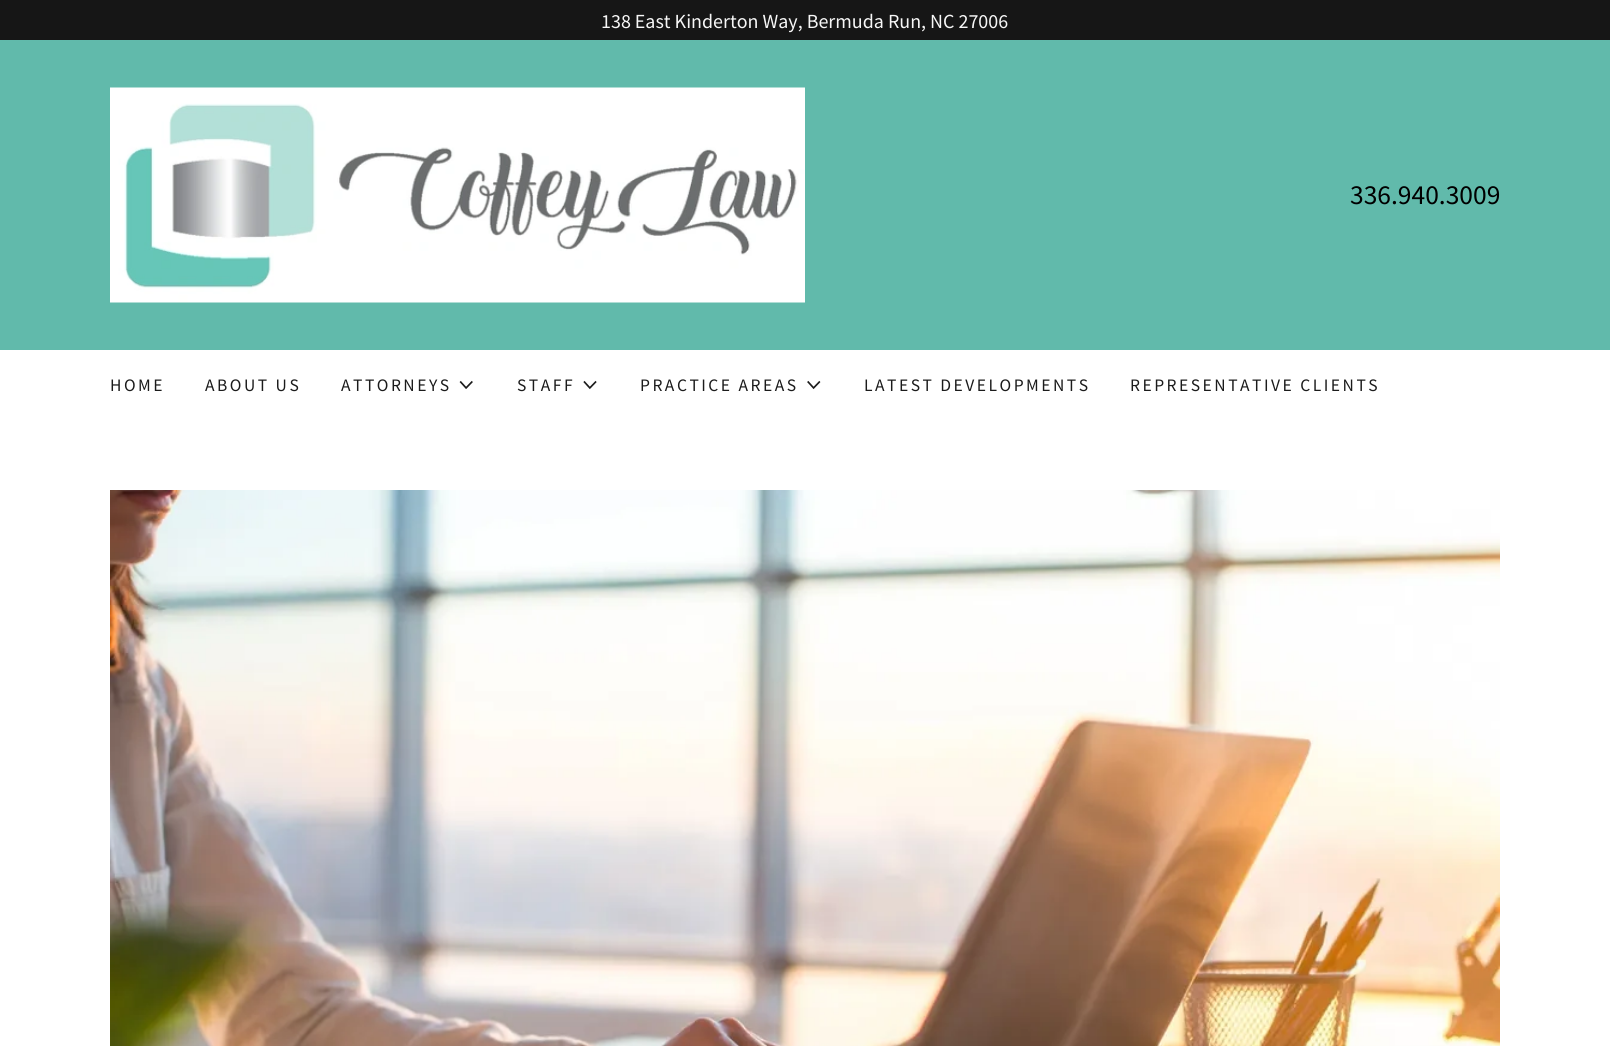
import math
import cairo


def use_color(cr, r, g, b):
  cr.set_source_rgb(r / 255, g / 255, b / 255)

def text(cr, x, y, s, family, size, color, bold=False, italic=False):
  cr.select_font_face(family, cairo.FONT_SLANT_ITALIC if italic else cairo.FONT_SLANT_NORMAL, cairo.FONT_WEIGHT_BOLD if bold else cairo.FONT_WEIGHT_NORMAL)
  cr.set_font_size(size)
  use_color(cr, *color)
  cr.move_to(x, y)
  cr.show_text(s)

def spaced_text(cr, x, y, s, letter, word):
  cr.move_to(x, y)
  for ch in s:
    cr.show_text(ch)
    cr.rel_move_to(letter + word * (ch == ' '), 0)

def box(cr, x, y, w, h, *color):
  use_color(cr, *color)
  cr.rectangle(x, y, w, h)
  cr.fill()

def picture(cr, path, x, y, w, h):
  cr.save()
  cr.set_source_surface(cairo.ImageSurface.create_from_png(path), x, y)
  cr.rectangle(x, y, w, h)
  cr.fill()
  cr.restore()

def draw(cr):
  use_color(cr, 97, 186, 171)
  cr.paint()
  box(cr, 0, 0, 1610, 40, 22, 22, 22)
  picture(cr, "img_01.png", 110, 87, 695, 216)
  box(cr, 0, 350, 1610, 696, 255, 255, 255)
  picture(cr, "img_02.png", 459, 380, 14, 9)
  picture(cr, "img_03.png", 583, 380, 14, 10)
  picture(cr, "img_04.png", 807, 380, 14, 10)
  picture(cr, "img_05.png", 110, 490, 1390, 556)
  text(cr, 601, 28, "138 East Kinderton Way, Bermuda Run, NC 27006", "Source Sans Pro", 20, (247, 247, 247))
  text(cr, 1350, 204, "336.940.3009", "Source Sans Pro", 27.5, (0, 0, 0))
  cr.set_font_size(17.5)
  use_color(cr, 27, 27, 27)
  spaced_text(cr, 110, 391, "HOME", 2.5, 0)
  spaced_text(cr, 205, 391, "ABOUT US", 2.5, 0)
  spaced_text(cr, 341, 391, "ATTORNEYS", 2.5, 0)
  spaced_text(cr, 517, 391, "STAFF", 2.5, 0)
  spaced_text(cr, 640, 391, "PRACTICE AREAS", 2.5, 0)
  spaced_text(cr, 864, 391, "LATEST DEVELOPMENTS", 2.5, 0)
  spaced_text(cr, 1130, 391, "REPRESENTATIVE CLIENTS", 2.5, 0)


surface = cairo.ImageSurface(cairo.FORMAT_RGB24, 1610, 1046)
cr = cairo.Context(surface)
options = cairo.FontOptions()
options.set_hint_metrics(cairo.HINT_METRICS_OFF)
options.set_hint_style(cairo.HINT_STYLE_NONE)
cr.set_font_options(options)
cr.set_miter_limit(4)
draw(cr)
surface.write_to_png("out.png")
